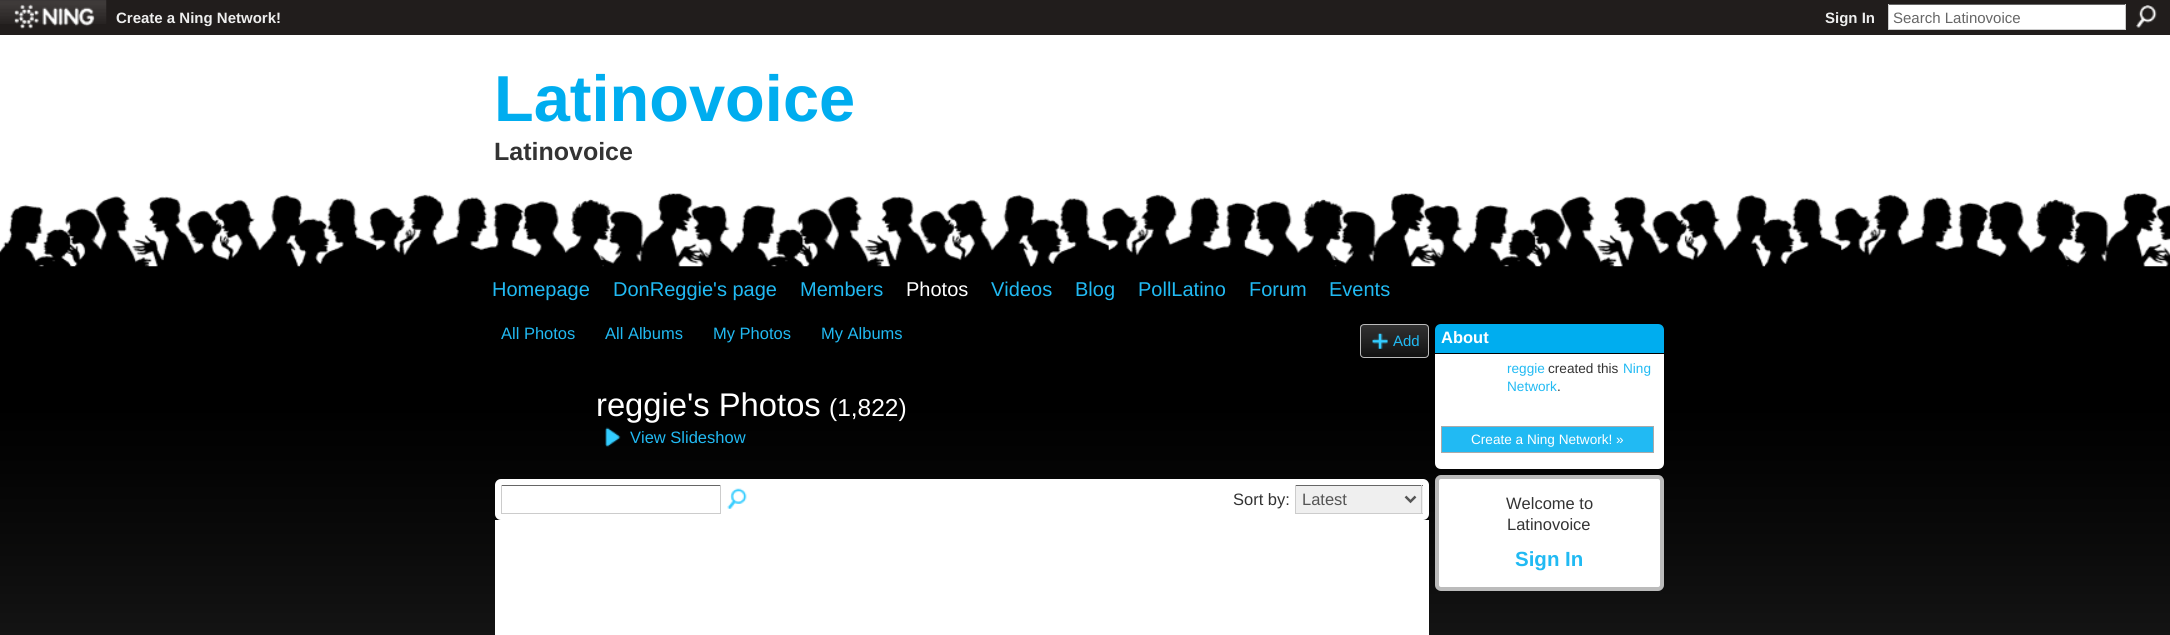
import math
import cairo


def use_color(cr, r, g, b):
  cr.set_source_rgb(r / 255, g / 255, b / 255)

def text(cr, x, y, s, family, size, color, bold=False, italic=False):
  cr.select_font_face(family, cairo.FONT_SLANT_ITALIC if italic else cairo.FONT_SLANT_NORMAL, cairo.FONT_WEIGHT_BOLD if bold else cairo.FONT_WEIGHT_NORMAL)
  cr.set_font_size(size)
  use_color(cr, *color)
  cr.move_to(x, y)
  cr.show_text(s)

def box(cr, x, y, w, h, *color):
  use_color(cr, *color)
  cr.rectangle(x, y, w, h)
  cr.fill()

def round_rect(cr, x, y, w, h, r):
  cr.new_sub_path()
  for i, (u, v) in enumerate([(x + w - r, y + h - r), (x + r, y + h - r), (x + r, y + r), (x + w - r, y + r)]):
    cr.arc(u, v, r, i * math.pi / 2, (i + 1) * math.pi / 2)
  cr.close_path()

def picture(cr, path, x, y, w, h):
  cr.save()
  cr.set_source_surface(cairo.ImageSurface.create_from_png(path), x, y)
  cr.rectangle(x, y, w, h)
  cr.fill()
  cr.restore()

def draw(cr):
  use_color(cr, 255, 255, 255)
  cr.paint()
  picture(cr, "img_01.png", 0, 311, 2170, 324)
  box(cr, 0, 0, 2170, 35, 33, 29, 28)
  picture(cr, "img_02.png", 0, 0, 107, 24)
  picture(cr, "img_03.png", 14, 4, 81, 25)
  box(cr, 1889, 5, 236, 24, 255, 255, 255)
  box(cr, 1888, 4, 238, 1, 102, 102, 102)
  box(cr, 2125, 4, 1, 26, 204, 204, 204)
  box(cr, 1888, 29, 238, 1, 204, 204, 204)
  box(cr, 1888, 4, 1, 26, 204, 204, 204)
  picture(cr, "img_04.png", 2136, 5, 21, 23)
  box(cr, 0, 266, 2170, 45, 0, 0, 0)
  picture(cr, "img_05.png", 0, 193, 2170, 74)
  picture(cr, "img_06.png", 1360, 325, 69, 32)
  round_rect(cr, 1360.5, 324.5, 68, 33, 3.5)
  use_color(cr, 187, 187, 187)
  cr.set_line_width(1)
  cr.stroke()
  picture(cr, "img_07.png", 1372, 333, 16, 16)
  picture(cr, "img_08.png", 605, 427, 16, 20)
  use_color(cr, 255, 255, 255)
  round_rect(cr, 495, 479, 934, 41, 6)
  cr.fill()
  box(cr, 501, 485, 220, 1, 102, 102, 102)
  box(cr, 720, 485, 1, 29, 204, 204, 204)
  box(cr, 501, 513, 220, 1, 204, 204, 204)
  box(cr, 501, 485, 1, 29, 204, 204, 204)
  picture(cr, "img_09.png", 727, 488, 20, 21)
  box(cr, 1296, 486, 127, 27, 239, 239, 239)
  box(cr, 1295, 485, 128, 1, 102, 102, 102)
  box(cr, 1421, 485, 1, 29, 204, 204, 204)
  box(cr, 1295, 513, 128, 1, 204, 204, 204)
  box(cr, 1295, 485, 1, 29, 204, 204, 204)
  cr.new_path()
  cr.move_to(1405.5, 496.5)
  cr.line_to(1410.5, 501.5)
  cr.line_to(1415.5, 496.5)
  use_color(cr, 85, 85, 85)
  cr.set_line_width(2.5)
  cr.stroke()
  box(cr, 495, 520, 934, 115, 255, 255, 255)
  use_color(cr, 0, 173, 239)
  cr.new_path()
  cr.move_to(1441, 324)
  cr.line_to(1658, 324)
  cr.curve_to(1661.5, 324, 1664, 326.5, 1664, 330)
  cr.line_to(1664, 354)
  cr.line_to(1435, 354)
  cr.line_to(1435, 330)
  cr.curve_to(1435, 326.5, 1437.5, 324, 1441, 324)
  cr.close_path()
  cr.fill()
  box(cr, 1435, 353, 229, 1, 0, 0, 0)
  use_color(cr, 255, 255, 255)
  cr.new_path()
  cr.move_to(1435, 354)
  cr.line_to(1664, 354)
  cr.line_to(1664, 463)
  cr.curve_to(1664, 466.5, 1661.5, 469, 1658, 469)
  cr.line_to(1441, 469)
  cr.curve_to(1437.5, 469, 1435, 466.5, 1435, 463)
  cr.close_path()
  cr.fill()
  use_color(cr, 33, 186, 243)
  cr.rectangle(1441.5, 426.5, 212, 26)
  cr.fill_preserve()
  use_color(cr, 170, 170, 170)
  cr.set_line_width(1)
  cr.stroke()
  use_color(cr, 255, 255, 255)
  round_rect(cr, 1437, 477, 225, 112, 4)
  cr.fill_preserve()
  use_color(cr, 187, 187, 187)
  cr.set_line_width(4)
  cr.stroke()
  text(cr, 116, 23, "Create a Ning Network!", "Liberation Sans", 15, (238, 238, 238), bold=True)
  text(cr, 1825, 23, "Sign In", "Liberation Sans", 15, (238, 238, 238), bold=True)
  text(cr, 1893, 23, "Search Latinovoice", "Liberation Sans", 15, (102, 102, 102))
  text(cr, 494, 121, "Latinovoice", "Liberation Sans", 65, (0, 173, 239), bold=True)
  text(cr, 494, 160, "Latinovoice", "Liberation Sans", 25, (51, 51, 51), bold=True)
  text(cr, 492, 296, "Homepage", "Liberation Sans", 20, (33, 186, 243))
  text(cr, 613, 296, "DonReggie's page", "Liberation Sans", 20, (33, 186, 243))
  text(cr, 800, 296, "Members", "Liberation Sans", 20, (33, 186, 243))
  text(cr, 906, 296, "Photos", "Liberation Sans", 20, (255, 255, 255))
  text(cr, 991, 296, "Videos", "Liberation Sans", 20, (33, 186, 243))
  text(cr, 1075, 296, "Blog", "Liberation Sans", 20, (33, 186, 243))
  text(cr, 1138, 296, "PollLatino", "Liberation Sans", 20, (33, 186, 243))
  text(cr, 1249, 296, "Forum", "Liberation Sans", 20, (33, 186, 243))
  text(cr, 1329, 296, "Events", "Liberation Sans", 20, (33, 186, 243))
  text(cr, 501, 339, "All Photos", "Liberation Sans", 16.5, (33, 186, 243))
  text(cr, 605, 339, "All Albums", "Liberation Sans", 16.5, (33, 186, 243))
  text(cr, 713, 339, "My Photos", "Liberation Sans", 16.5, (33, 186, 243))
  text(cr, 821, 339, "My Albums", "Liberation Sans", 16.5, (33, 186, 243))
  text(cr, 1393, 346, "Add", "Liberation Sans", 15, (33, 186, 243))
  text(cr, 596, 416, "reggie's Photos", "Liberation Sans", 32.75, (255, 255, 255))
  text(cr, 829, 416, "(1,822)", "Liberation Sans", 24.5, (255, 255, 255))
  text(cr, 630, 443, "View Slideshow", "Liberation Sans", 16.5, (33, 186, 243))
  text(cr, 1233, 505, "Sort by:", "Liberation Sans", 16.5, (51, 51, 51))
  text(cr, 1302, 505, "Latest", "Liberation Sans", 16.5, (85, 85, 85))
  text(cr, 1441, 343, "About", "Liberation Sans", 16.5, (255, 255, 255), bold=True)
  text(cr, 1507, 373, "reggie", "Liberation Sans", 13.6, (33, 186, 243))
  text(cr, 1548, 373, "created this", "Liberation Sans", 13.6, (51, 51, 51))
  text(cr, 1623, 373, "Ning", "Liberation Sans", 13.6, (33, 186, 243))
  text(cr, 1507, 391, "Network", "Liberation Sans", 13.6, (33, 186, 243))
  text(cr, 1557, 391, ".", "Liberation Sans", 13.6, (51, 51, 51))
  text(cr, 1471, 444, "Create a Ning Network! »", "Liberation Sans", 13.6, (255, 255, 255))
  text(cr, 1506, 509, "Welcome to", "Liberation Sans", 16.5, (51, 51, 51))
  text(cr, 1507, 530, "Latinovoice", "Liberation Sans", 16.5, (51, 51, 51))
  text(cr, 1515, 566, "Sign In", "Liberation Sans", 20.5, (33, 186, 243), bold=True)


surface = cairo.ImageSurface(cairo.FORMAT_RGB24, 2170, 635)
cr = cairo.Context(surface)
options = cairo.FontOptions()
options.set_hint_metrics(cairo.HINT_METRICS_OFF)
options.set_hint_style(cairo.HINT_STYLE_NONE)
cr.set_font_options(options)
cr.set_miter_limit(4)
draw(cr)
surface.write_to_png("out.png")
